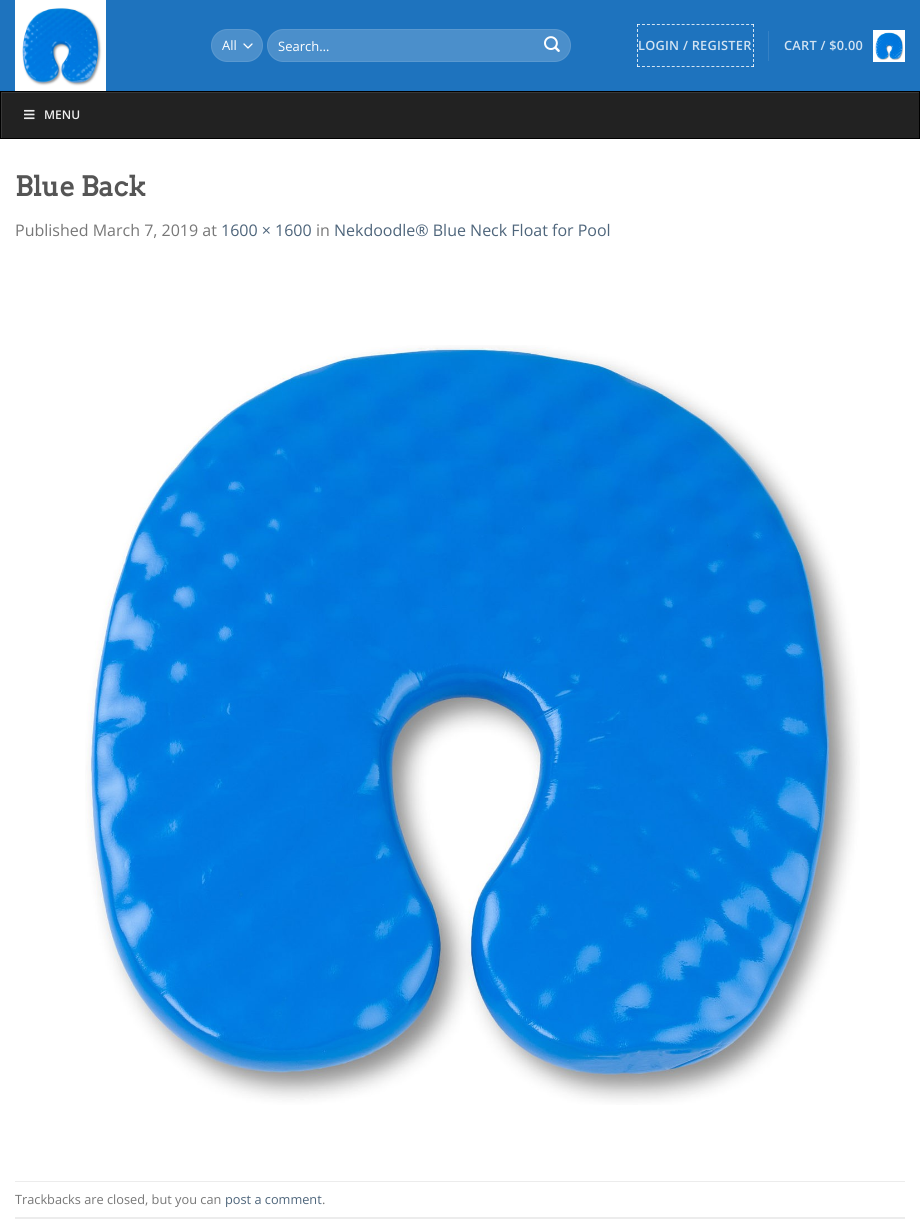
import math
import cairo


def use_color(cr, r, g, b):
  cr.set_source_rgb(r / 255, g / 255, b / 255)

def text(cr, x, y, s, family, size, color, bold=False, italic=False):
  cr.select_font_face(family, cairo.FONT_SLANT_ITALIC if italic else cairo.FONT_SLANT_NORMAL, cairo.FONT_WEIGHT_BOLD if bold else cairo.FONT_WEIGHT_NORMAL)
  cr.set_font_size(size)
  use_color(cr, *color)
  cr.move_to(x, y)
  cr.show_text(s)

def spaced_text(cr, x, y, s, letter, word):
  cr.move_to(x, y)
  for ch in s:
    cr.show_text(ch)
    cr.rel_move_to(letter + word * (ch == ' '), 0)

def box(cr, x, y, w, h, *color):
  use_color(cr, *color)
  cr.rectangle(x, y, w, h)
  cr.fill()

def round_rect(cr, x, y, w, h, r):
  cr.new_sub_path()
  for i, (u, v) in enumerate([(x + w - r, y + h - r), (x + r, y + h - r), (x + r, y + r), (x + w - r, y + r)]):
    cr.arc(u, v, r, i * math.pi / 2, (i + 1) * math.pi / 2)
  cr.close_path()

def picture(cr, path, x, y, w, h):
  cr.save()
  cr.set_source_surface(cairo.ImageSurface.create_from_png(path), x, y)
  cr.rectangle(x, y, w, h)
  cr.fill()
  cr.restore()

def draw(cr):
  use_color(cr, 255, 255, 255)
  cr.paint()
  box(cr, 0, 0, 920, 91, 30, 115, 190)
  picture(cr, "img_01.png", 15, 0, 91, 91)
  use_color(cr, 75, 143, 203)
  round_rect(cr, 211, 29, 52, 33, 16.5)
  cr.fill()
  cr.new_path()
  cr.move_to(244, 44)
  cr.line_to(248, 48)
  cr.line_to(252, 44)
  use_color(cr, 255, 255, 255)
  cr.set_line_width(1.3)
  cr.set_line_cap(cairo.LINE_CAP_ROUND)
  cr.set_line_join(cairo.LINE_JOIN_ROUND)
  cr.stroke()
  round_rect(cr, 211.5, 29.5, 51, 32, 16)
  cr.set_source_rgba(1, 1, 1, 0.09)
  cr.set_line_width(1)
  cr.set_line_cap(cairo.LINE_CAP_BUTT)
  cr.set_line_join(cairo.LINE_JOIN_MITER)
  cr.stroke()
  use_color(cr, 75, 143, 203)
  round_rect(cr, 267, 29, 304, 33, 16.5)
  cr.fill()
  round_rect(cr, 267.5, 29.5, 303, 32, 16)
  cr.set_source_rgba(1, 1, 1, 0.09)
  cr.stroke()
  picture(cr, "img_02.png", 544, 36, 16, 16)
  cr.new_path()
  cr.move_to(637, 24.5)
  cr.line_to(754, 24.5)
  use_color(cr, 210, 227, 242)
  cr.set_dash([3, 1.96])
  cr.stroke()
  cr.new_path()
  cr.move_to(753.5, 24)
  cr.line_to(753.5, 67)
  cr.set_source_rgba(1, 1, 1, 0.8)
  cr.set_dash([3, 2])
  cr.stroke()
  cr.new_path()
  cr.move_to(637, 66.5)
  cr.line_to(754, 66.5)
  cr.set_dash([3, 1.96])
  cr.stroke()
  cr.new_path()
  cr.move_to(637.5, 24)
  cr.line_to(637.5, 67)
  cr.set_dash([3, 2])
  cr.stroke()
  box(cr, 768, 31, 1, 30, 53, 129, 197)
  picture(cr, "img_03.png", 873, 30, 32, 32)
  box(cr, 2, 93, 917, 45, 34, 34, 34)
  cr.save()
  cr.rectangle(1, 92, 918, 46)
  cr.clip()
  use_color(cr, 56, 56, 56)
  cr.set_fill_rule(cairo.FILL_RULE_EVEN_ODD)
  cr.new_path()
  cr.move_to(-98, -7)
  cr.line_to(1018, -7)
  cr.line_to(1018, 237)
  cr.line_to(-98, 237)
  cr.close_path()
  cr.move_to(2, 93)
  cr.line_to(920, 93)
  cr.line_to(920, 139)
  cr.line_to(2, 139)
  cr.close_path()
  cr.fill()
  cr.restore()
  cr.rectangle(0.5, 91.5, 919, 47)
  use_color(cr, 0, 0, 0)
  cr.set_dash([])
  cr.stroke()
  picture(cr, "img_04.png", 24, 109, 11, 11)
  picture(cr, "img_05.png", 85, 345, 775, 760)
  box(cr, 15, 1181, 890, 1, 236, 236, 236)
  box(cr, 15, 1217, 890, 2, 236, 236, 236)
  text(cr, 222, 50, "All", "Open Sans", 13, (255, 255, 255))
  text(cr, 278, 51, "Search…", "Open Sans", 13, (255, 255, 255))
  cr.select_font_face("Open Sans SemiBold")
  cr.set_font_size(12.75)
  use_color(cr, 210, 227, 242)
  spaced_text(cr, 638, 50, "LOGIN / REGISTER", 0.25, 0)
  spaced_text(cr, 784, 50, "CART / $0.00", 0.25, 0)
  text(cr, 44, 119, "MENU", "Open Sans SemiBold", 12, (238, 238, 238))
  text(cr, 15, 196, "Blue Back", "Arvo", 27, (85, 85, 85), bold=True)
  text(cr, 15, 236, "Published March 7, 2019 at", "Open Sans", 16, (119, 119, 119))
  text(cr, 221, 236, "1600 × 1600", "Open Sans", 16, (78, 101, 123))
  text(cr, 316, 236, "in", "Open Sans", 16, (119, 119, 119))
  text(cr, 334, 236, "Nekdoodle® Blue Neck Float for Pool", "Open Sans", 16, (78, 101, 123))
  text(cr, 15, 1204, "Trackbacks are closed, but you can", "Open Sans", 12.75, (119, 119, 119))
  text(cr, 225, 1204, "post a comment", "Open Sans", 12.75, (78, 101, 123))
  text(cr, 322, 1204, ".", "Open Sans", 12.75, (119, 119, 119))


surface = cairo.ImageSurface(cairo.FORMAT_RGB24, 920, 1230)
cr = cairo.Context(surface)
options = cairo.FontOptions()
options.set_hint_metrics(cairo.HINT_METRICS_OFF)
options.set_hint_style(cairo.HINT_STYLE_NONE)
cr.set_font_options(options)
cr.set_miter_limit(4)
draw(cr)
surface.write_to_png("out.png")
